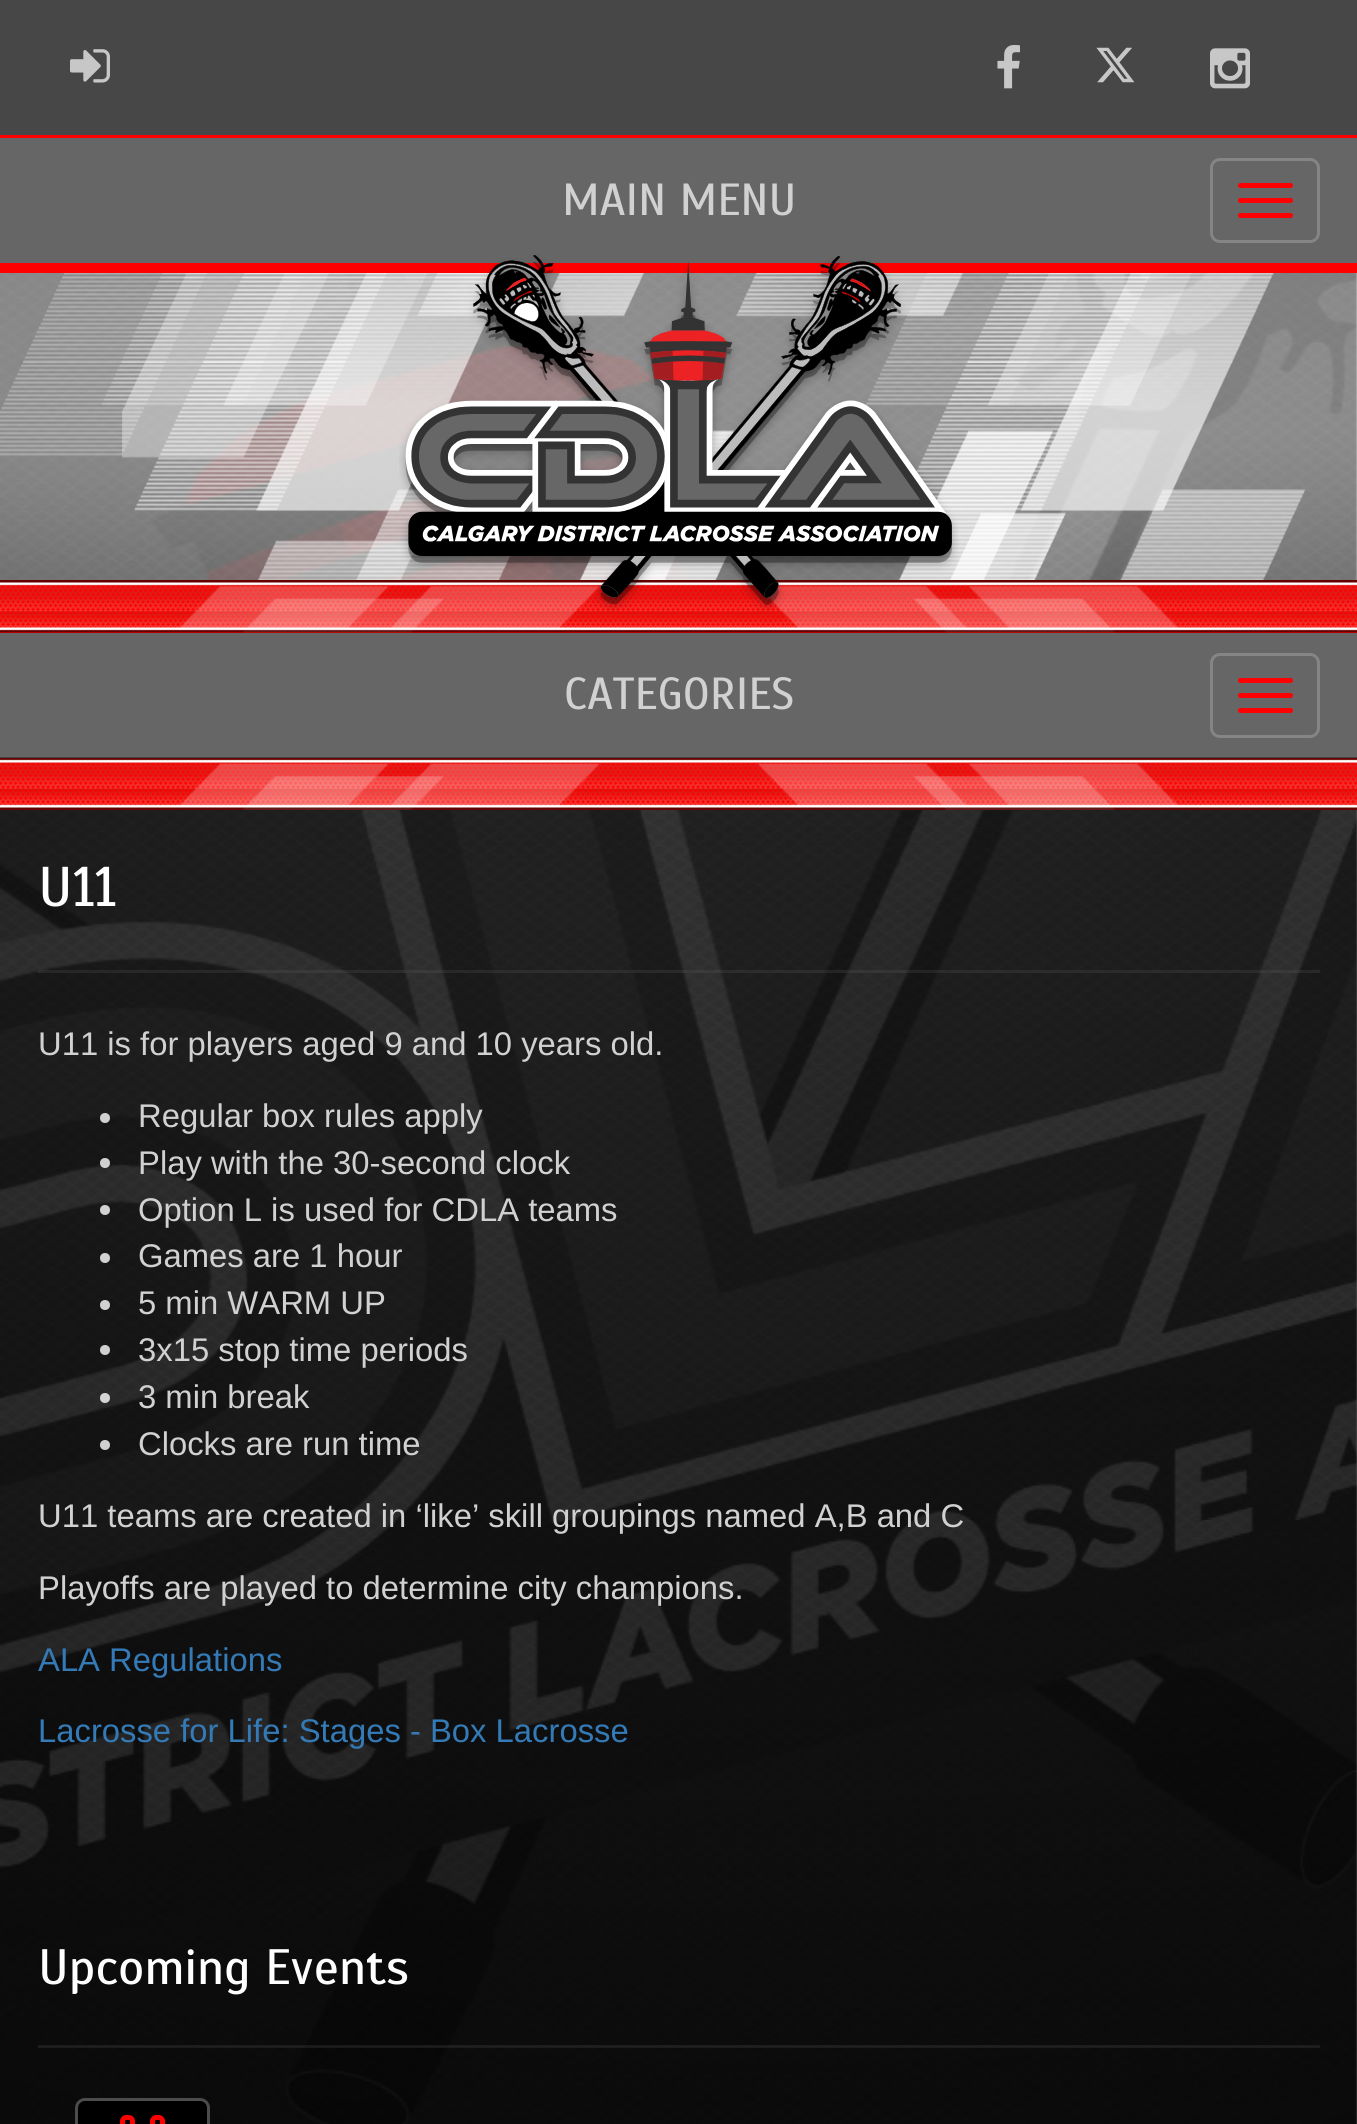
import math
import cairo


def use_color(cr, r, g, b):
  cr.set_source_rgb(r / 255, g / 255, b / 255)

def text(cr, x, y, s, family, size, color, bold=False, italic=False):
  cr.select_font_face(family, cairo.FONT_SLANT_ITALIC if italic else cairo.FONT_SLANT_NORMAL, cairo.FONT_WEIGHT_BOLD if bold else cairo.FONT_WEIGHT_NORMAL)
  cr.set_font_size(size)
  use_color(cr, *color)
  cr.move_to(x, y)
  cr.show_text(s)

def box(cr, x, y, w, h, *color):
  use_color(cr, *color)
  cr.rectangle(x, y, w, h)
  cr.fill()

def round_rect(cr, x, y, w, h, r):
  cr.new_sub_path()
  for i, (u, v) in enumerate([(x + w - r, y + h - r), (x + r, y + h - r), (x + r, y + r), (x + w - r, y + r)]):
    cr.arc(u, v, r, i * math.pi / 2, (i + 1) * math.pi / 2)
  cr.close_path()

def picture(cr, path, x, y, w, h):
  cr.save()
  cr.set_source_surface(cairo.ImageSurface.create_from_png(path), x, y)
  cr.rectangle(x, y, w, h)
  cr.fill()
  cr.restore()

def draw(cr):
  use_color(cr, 255, 255, 255)
  cr.paint()
  box(cr, 0, 135, 1357, 3, 255, 0, 0)
  box(cr, 0, 0, 1357, 135, 71, 71, 72)
  picture(cr, "img_01.png", 70, 49, 40, 34)
  picture(cr, "img_02.png", 997, 45, 23, 44)
  picture(cr, "img_03.png", 1096, 47, 39, 36)
  picture(cr, "img_04.png", 1210, 48, 40, 41)
  box(cr, 0, 138, 1357, 125, 102, 102, 103)
  box(cr, 0, 263, 1357, 10, 255, 0, 0)
  round_rect(cr, 1211.5, 159.5, 107, 82, 8.5)
  use_color(cr, 133, 133, 133)
  cr.set_line_width(3)
  cr.stroke()
  use_color(cr, 255, 0, 0)
  round_rect(cr, 1238, 183, 55, 5, 2.5)
  cr.fill()
  round_rect(cr, 1238, 198, 55, 5, 2.5)
  cr.fill()
  round_rect(cr, 1238, 213, 55, 5, 2.5)
  cr.fill()
  picture(cr, "img_06.png", 0, 273, 1357, 1851)
  picture(cr, "img_07.png", 0, 273, 1357, 307)
  box(cr, 0, 580, 1357, 53, 255, 0, 0)
  picture(cr, "img_08.png", 0, 580, 1357, 53)
  picture(cr, "img_05.png", 399, 255, 560, 357)
  box(cr, 0, 633, 1357, 125, 102, 102, 103)
  round_rect(cr, 1211.5, 654.5, 107, 82, 8.5)
  use_color(cr, 133, 133, 133)
  cr.stroke()
  use_color(cr, 255, 0, 0)
  round_rect(cr, 1238, 678, 55, 5, 2.5)
  cr.fill()
  round_rect(cr, 1238, 693, 55, 5, 2.5)
  cr.fill()
  round_rect(cr, 1238, 708, 55, 5, 2.5)
  cr.fill()
  box(cr, 0, 758, 1357, 52, 255, 0, 0)
  picture(cr, "img_09.png", 0, 757, 1357, 53)
  cr.set_source_rgba(0, 0, 0, 0.5)
  cr.rectangle(0, 810, 1357, 1314)
  cr.fill()
  cr.set_source_rgba(0.4, 0.4, 0.404, 0.2)
  cr.rectangle(38, 970, 1282, 3)
  cr.fill()
  cr.set_source_rgba(1, 1, 1, 0.8)
  cr.arc(105, 1118, 5, 0, 2 * math.pi)
  cr.fill()
  cr.arc(105, 1163, 5, 0, 2 * math.pi)
  cr.fill()
  use_color(cr, 209, 209, 209)
  cr.arc(105, 1210, 5, 0, 2 * math.pi)
  cr.fill()
  cr.arc(105, 1258, 5, 0, 2 * math.pi)
  cr.fill()
  use_color(cr, 208, 208, 208)
  cr.arc(105, 1305, 5, 0, 2 * math.pi)
  cr.fill()
  cr.arc(105, 1350, 5, 0, 2 * math.pi)
  cr.fill()
  cr.set_source_rgba(1, 1, 1, 0.8)
  cr.arc(105, 1398, 5, 0, 2 * math.pi)
  cr.fill()
  use_color(cr, 208, 208, 208)
  cr.arc(105, 1445, 5, 0, 2 * math.pi)
  cr.fill()
  cr.set_source_rgba(0.4, 0.4, 0.404, 0.2)
  cr.rectangle(38, 2045, 1282, 3)
  cr.fill()
  use_color(cr, 0, 0, 0)
  round_rect(cr, 75, 2098, 135, 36, 10)
  cr.fill()
  round_rect(cr, 76.5, 2099.5, 132, 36, 8.5)
  cr.set_source_rgba(1, 1, 1, 0.3)
  cr.stroke()
  picture(cr, "img_10.png", 120, 2115, 45, 9)
  text(cr, 562, 215, "MAIN MENU", "Scada", 45, (209, 209, 209))
  text(cr, 564, 709, "CATEGORIES", "Scada", 45, (209, 209, 209))
  text(cr, 38, 906, "U11", "Scada", 56, (255, 255, 255))
  text(cr, 38, 1055, "U11 is for players aged 9 and 10 years old.", "Liberation Sans", 32.8, (209, 209, 209))
  text(cr, 138, 1127, "Regular box rules apply", "Liberation Sans", 32.8, (209, 209, 209))
  text(cr, 138, 1174, "Play with the 30-second clock", "Liberation Sans", 32.8, (209, 209, 209))
  text(cr, 138, 1221, "Option L is used for CDLA teams", "Liberation Sans", 32.8, (209, 209, 209))
  text(cr, 138, 1267, "Games are 1 hour", "Liberation Sans", 32.8, (209, 209, 209))
  text(cr, 138, 1314, "5 min WARM UP", "Liberation Sans", 32.8, (209, 209, 209))
  text(cr, 138, 1361, "3x15 stop time periods", "Liberation Sans", 32.8, (209, 209, 209))
  text(cr, 138, 1408, "3 min break", "Liberation Sans", 32.8, (209, 209, 209))
  text(cr, 138, 1455, "Clocks are run time", "Liberation Sans", 32.8, (209, 209, 209))
  text(cr, 38, 1527, "U11 teams are created in ‘like’ skill groupings named A,B and C", "Liberation Sans", 32.8, (209, 209, 209))
  text(cr, 38, 1599, "Playoffs are played to determine city champions.", "Liberation Sans", 32.8, (209, 209, 209))
  text(cr, 38, 1671, "ALA Regulations", "Liberation Sans", 32.8, (51, 122, 183))
  text(cr, 38, 1742, "Lacrosse for Life: Stages - Box Lacrosse", "Liberation Sans", 32.8, (51, 122, 183))
  text(cr, 38, 1984, "Upcoming Events", "Scada", 49.75, (255, 255, 255))


surface = cairo.ImageSurface(cairo.FORMAT_RGB24, 1357, 2124)
cr = cairo.Context(surface)
options = cairo.FontOptions()
options.set_hint_metrics(cairo.HINT_METRICS_OFF)
options.set_hint_style(cairo.HINT_STYLE_NONE)
cr.set_font_options(options)
cr.set_miter_limit(4)
draw(cr)
surface.write_to_png("out.png")
